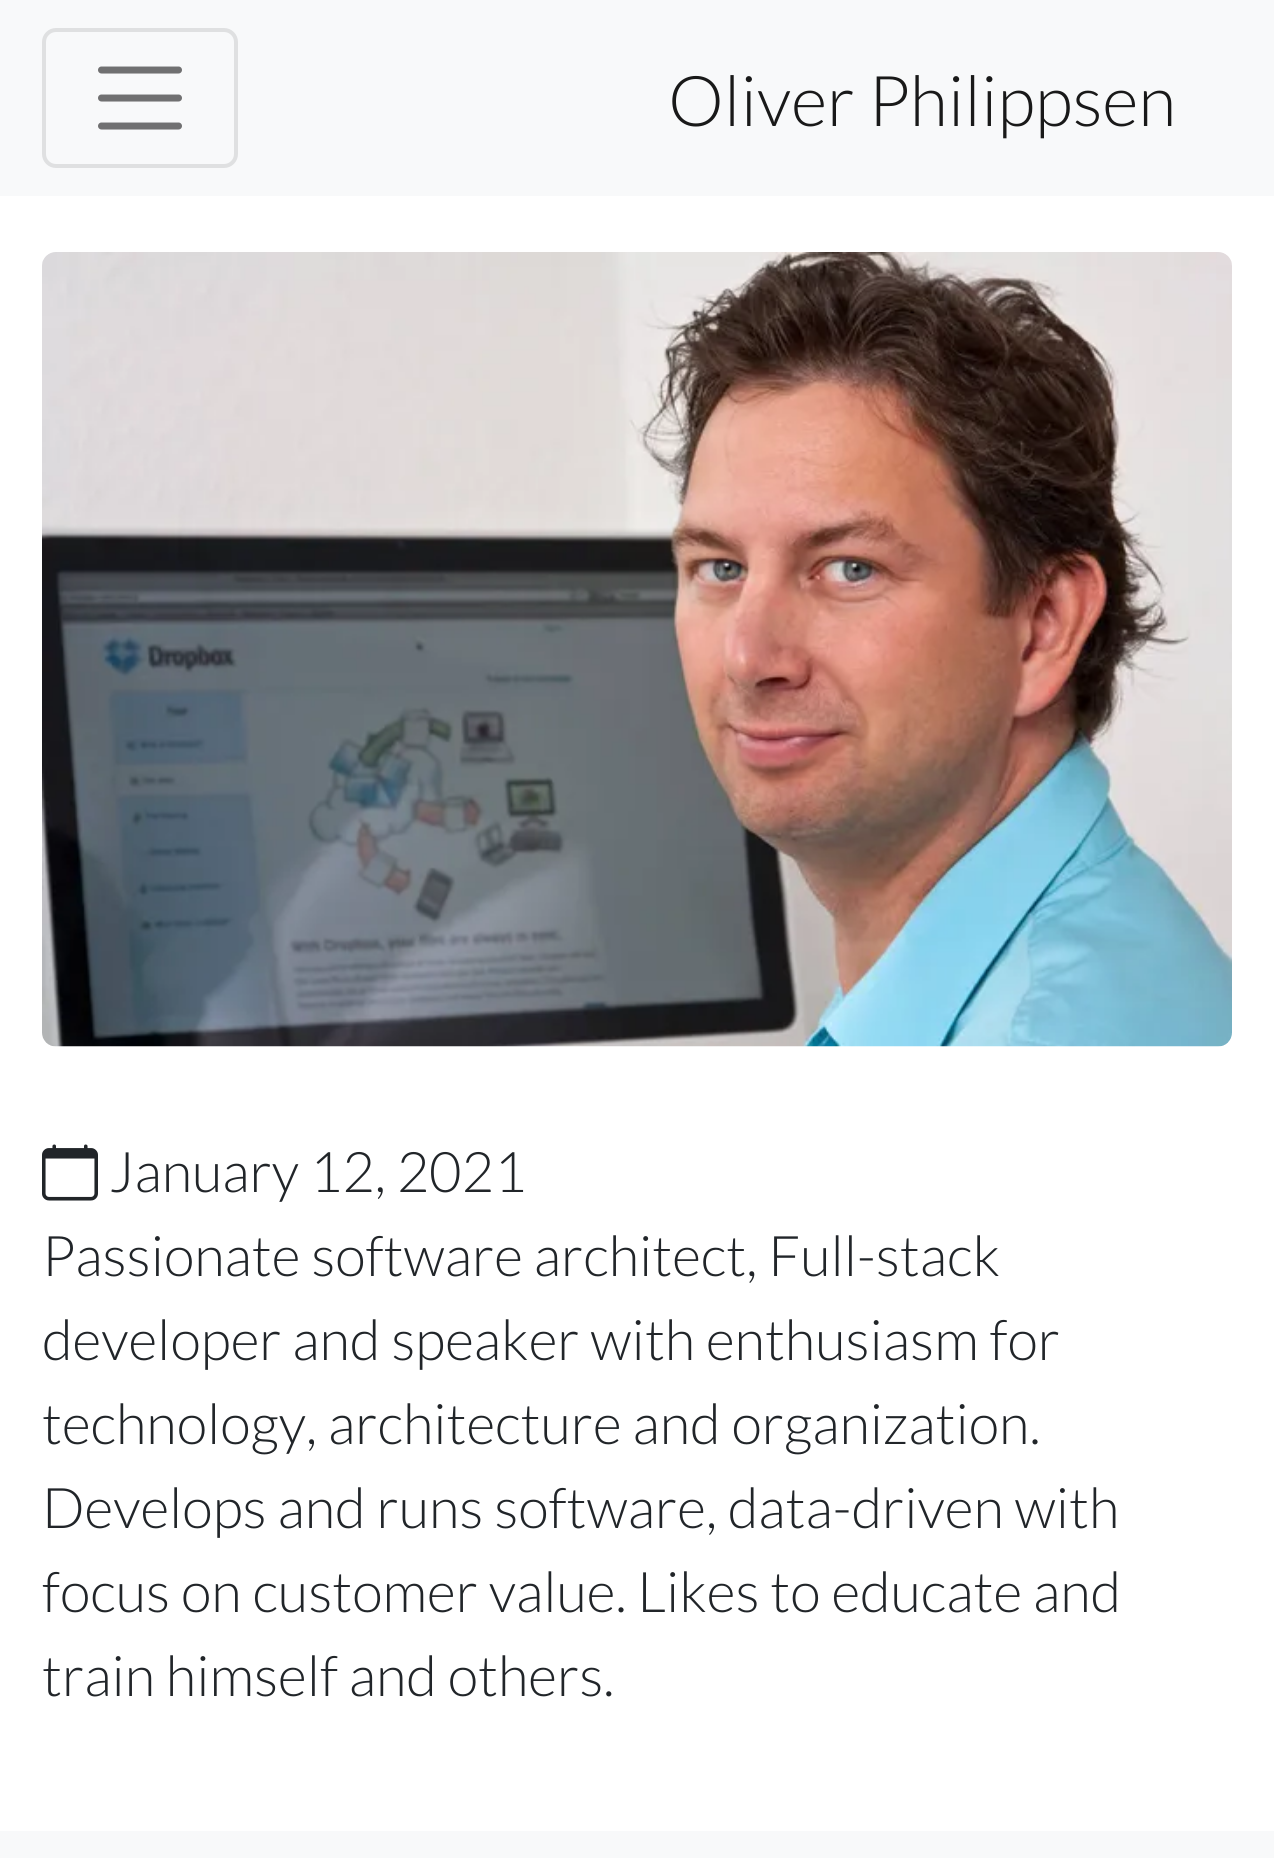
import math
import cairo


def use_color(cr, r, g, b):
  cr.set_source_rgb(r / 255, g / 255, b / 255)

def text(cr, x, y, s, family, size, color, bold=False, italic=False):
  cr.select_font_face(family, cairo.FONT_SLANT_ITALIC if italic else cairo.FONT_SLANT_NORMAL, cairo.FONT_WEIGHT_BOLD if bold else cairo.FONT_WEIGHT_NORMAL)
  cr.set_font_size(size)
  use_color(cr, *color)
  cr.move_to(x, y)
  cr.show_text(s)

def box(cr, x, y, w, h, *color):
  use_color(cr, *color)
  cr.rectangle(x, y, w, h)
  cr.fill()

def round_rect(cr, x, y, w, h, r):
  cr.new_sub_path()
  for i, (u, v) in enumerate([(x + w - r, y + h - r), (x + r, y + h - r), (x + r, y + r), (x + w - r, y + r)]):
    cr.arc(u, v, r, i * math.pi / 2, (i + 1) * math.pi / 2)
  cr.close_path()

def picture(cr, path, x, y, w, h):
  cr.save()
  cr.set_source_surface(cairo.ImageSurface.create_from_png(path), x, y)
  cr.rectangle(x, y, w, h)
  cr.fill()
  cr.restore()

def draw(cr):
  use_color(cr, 255, 255, 255)
  cr.paint()
  box(cr, 0, 0, 1274, 196, 248, 249, 250)
  round_rect(cr, 44, 30, 192, 136, 12)
  use_color(cr, 223, 224, 225)
  cr.set_line_width(4)
  cr.stroke()
  cr.new_path()
  cr.move_to(101.5, 70)
  cr.line_to(178.5, 70)
  cr.move_to(101.5, 98)
  cr.line_to(178.5, 98)
  cr.move_to(101.5, 126)
  cr.line_to(178.5, 126)
  use_color(cr, 112, 112, 113)
  cr.set_line_width(7)
  cr.set_line_cap(cairo.LINE_CAP_ROUND)
  cr.stroke()
  picture(cr, "img_01.png", 42, 252, 1190, 795)
  picture(cr, "img_02.png", 42, 1144, 56, 57)
  box(cr, 0, 1831, 1274, 27, 248, 249, 250)
  text(cr, 668, 126, "Oliver Philippsen", "Lato Light", 70, (25, 25, 25))
  text(cr, 109, 1192, "January 12, 2021", "Lato Light", 56, (33, 37, 41))
  text(cr, 42, 1276, "Passionate software architect, Full-stack", "Lato Light", 56, (33, 37, 41))
  text(cr, 42, 1360, "developer and speaker with enthusiasm for", "Lato Light", 56, (33, 37, 41))
  text(cr, 42, 1444, "technology, architecture and organization.", "Lato Light", 56, (33, 37, 41))
  text(cr, 42, 1528, "Develops and runs software, data-driven with", "Lato Light", 56, (33, 37, 41))
  text(cr, 42, 1612, "focus on customer value. Likes to educate and", "Lato Light", 56, (33, 37, 41))
  text(cr, 42, 1696, "train himself and others.", "Lato Light", 56, (33, 37, 41))


surface = cairo.ImageSurface(cairo.FORMAT_RGB24, 1274, 1858)
cr = cairo.Context(surface)
options = cairo.FontOptions()
options.set_hint_metrics(cairo.HINT_METRICS_OFF)
options.set_hint_style(cairo.HINT_STYLE_NONE)
cr.set_font_options(options)
cr.set_miter_limit(4)
draw(cr)
surface.write_to_png("out.png")
